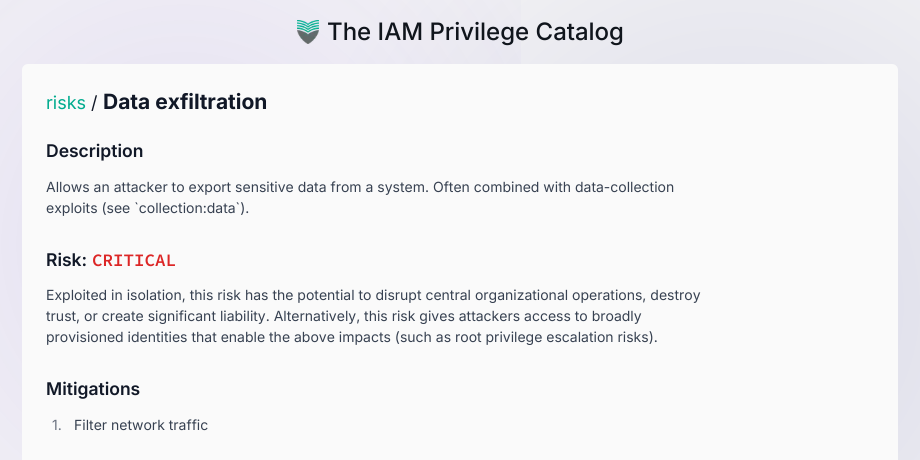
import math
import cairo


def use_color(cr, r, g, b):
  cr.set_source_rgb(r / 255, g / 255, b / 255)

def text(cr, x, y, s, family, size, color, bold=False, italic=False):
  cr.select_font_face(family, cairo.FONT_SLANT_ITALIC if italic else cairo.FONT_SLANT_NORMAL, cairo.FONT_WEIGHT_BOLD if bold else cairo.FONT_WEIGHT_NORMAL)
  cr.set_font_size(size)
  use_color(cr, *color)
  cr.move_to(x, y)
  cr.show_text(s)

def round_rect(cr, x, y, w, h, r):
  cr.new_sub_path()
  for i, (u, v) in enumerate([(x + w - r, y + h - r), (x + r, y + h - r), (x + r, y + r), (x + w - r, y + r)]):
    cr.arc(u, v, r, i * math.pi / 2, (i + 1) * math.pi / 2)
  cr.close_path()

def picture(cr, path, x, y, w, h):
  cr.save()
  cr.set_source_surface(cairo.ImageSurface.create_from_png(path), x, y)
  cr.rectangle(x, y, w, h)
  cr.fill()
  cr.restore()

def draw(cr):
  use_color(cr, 255, 255, 255)
  cr.paint()
  gradient = cairo.RadialGradient(0, 0, 0, 0, 0, 1)
  gradient.set_matrix(cairo.Matrix(1 / 460, 0, 0, 1 / 487, -1 * 736 / 460, -1 * 305 / 487))
  gradient.add_color_stop_rgba(0, 0.847, 0.847, 0.91, 1)
  gradient.add_color_stop_rgba(1, 0.961, 0.961, 0.961, 1)
  cr.set_source(gradient)
  cr.rectangle(0, 0, 920, 460)
  cr.fill()
  gradient = cairo.RadialGradient(0, 0, 0, 0, 0, 1)
  gradient.set_matrix(cairo.Matrix(1 / 460, 0, 0, 1 / 487, -1 * 184 / 460, -1 * 244 / 487))
  gradient.add_color_stop_rgba(0, 0.376, 0.212, 0.867, 0.12)
  gradient.add_color_stop_rgba(1, 0.376, 0.212, 0.867, 0)
  cr.set_source(gradient)
  cr.rectangle(0, 0, 521, 460)
  cr.fill()
  picture(cr, "img_01.png", 297, 20, 22, 24)
  use_color(cr, 250, 250, 250)
  round_rect(cr, 22, 64, 876, 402, 6)
  cr.fill()
  text(cr, 327, 40, "The IAM Privilege Catalog", "Inter Medium", 24, (16, 21, 28))
  text(cr, 46, 109, "risks", "Inter", 18, (0, 171, 142))
  text(cr, 91, 109, "/", "Inter", 18, (17, 24, 39))
  text(cr, 103, 109, "Data exfiltration", "Inter", 21, (17, 24, 39), bold=True)
  text(cr, 46, 157, "Description", "Inter SemiBold", 17.5, (17, 24, 39))
  text(cr, 46, 192, "Allows an attacker to export sensitive data from a system. Often combined with data-collection", "Inter", 14, (55, 65, 81))
  text(cr, 46, 213, "exploits (see `collection:data`).", "Inter", 14, (55, 65, 81))
  text(cr, 46, 266, "Risk:", "Inter SemiBold", 17.5, (17, 24, 39))
  text(cr, 92, 266, "CRITICAL", "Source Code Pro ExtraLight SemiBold", 17.5, (220, 38, 38))
  text(cr, 46, 300, "Exploited in isolation, this risk has the potential to disrupt central organizational operations, destroy", "Inter", 14, (55, 65, 81))
  text(cr, 46, 321, "trust, or create significant liability. Alternatively, this risk gives attackers access to broadly", "Inter", 14, (55, 65, 81))
  text(cr, 46, 342, "provisioned identities that enable the above impacts (such as root privilege escalation risks).", "Inter", 14, (55, 65, 81))
  text(cr, 46, 395, "Mitigations", "Inter SemiBold", 17.5, (17, 24, 39))
  text(cr, 52, 430, "1.", "Inter", 14, (107, 114, 128))
  text(cr, 74, 430, "Filter network traffic", "Inter", 14, (55, 65, 81))


surface = cairo.ImageSurface(cairo.FORMAT_RGB24, 920, 460)
cr = cairo.Context(surface)
options = cairo.FontOptions()
options.set_hint_metrics(cairo.HINT_METRICS_OFF)
options.set_hint_style(cairo.HINT_STYLE_NONE)
cr.set_font_options(options)
cr.set_miter_limit(4)
draw(cr)
surface.write_to_png("out.png")
